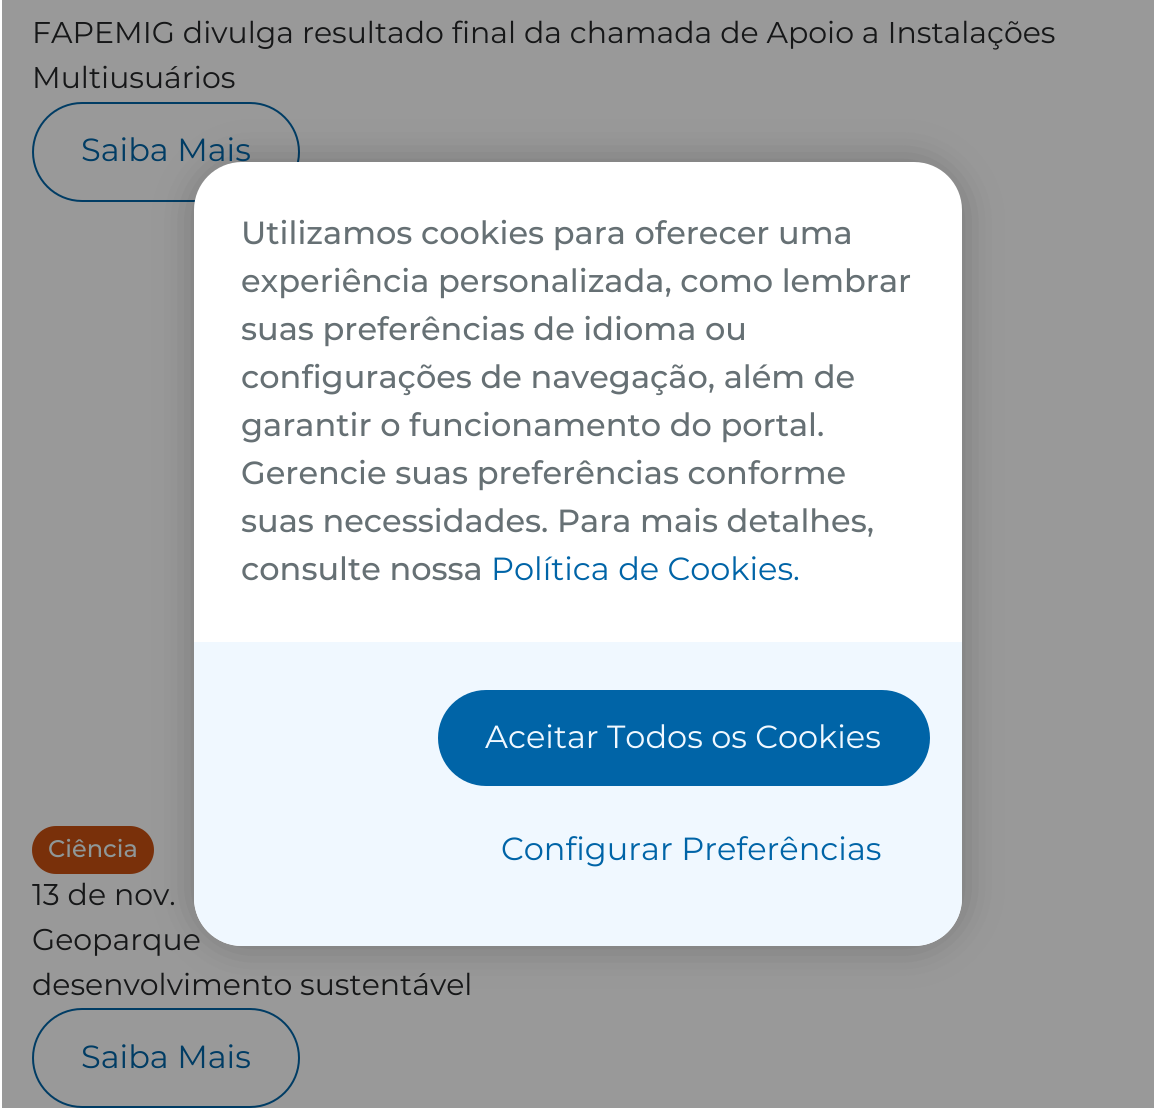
import math
import cairo


def use_color(cr, r, g, b):
  cr.set_source_rgb(r / 255, g / 255, b / 255)

def text(cr, x, y, s, family, size, color, bold=False, italic=False):
  cr.select_font_face(family, cairo.FONT_SLANT_ITALIC if italic else cairo.FONT_SLANT_NORMAL, cairo.FONT_WEIGHT_BOLD if bold else cairo.FONT_WEIGHT_NORMAL)
  cr.set_font_size(size)
  use_color(cr, *color)
  cr.move_to(x, y)
  cr.show_text(s)

def box(cr, x, y, w, h, *color):
  use_color(cr, *color)
  cr.rectangle(x, y, w, h)
  cr.fill()

def round_rect(cr, x, y, w, h, r):
  cr.new_sub_path()
  for i, (u, v) in enumerate([(x + w - r, y + h - r), (x + r, y + h - r), (x + r, y + r), (x + w - r, y + r)]):
    cr.arc(u, v, r, i * math.pi / 2, (i + 1) * math.pi / 2)
  cr.close_path()

def shadow(cr, x, y, w, h, r, blur, alpha):
  cr.push_group_with_content(cairo.CONTENT_ALPHA)
  cr.set_operator(cairo.OPERATOR_SOURCE)
  for i in range(15, -16, -2):
    e = blur * i / 6
    if min(w, h) + 2 * e > 0:
      cr.set_source_rgba(0, 0, 0, alpha * math.erfc((i - 1) / 8.5) / 2)
      round_rect(cr, x - e, y - e, w + 2 * e, h + 2 * e, max(0, min(r + e + blur * .6, min(w, h) / 2 + e)))
      cr.fill()
  cr.mask(cr.pop_group())

def draw(cr):
  use_color(cr, 255, 255, 255)
  cr.paint()
  box(cr, 2, 0, 1152, 1108, 153, 153, 153)
  round_rect(cr, 33, 103, 266, 98, 49)
  use_color(cr, 0, 60, 100)
  cr.stroke()
  use_color(cr, 121, 48, 10)
  round_rect(cr, 32, 826, 122, 48, 24)
  cr.fill()
  round_rect(cr, 33, 1009, 266, 98, 49)
  use_color(cr, 0, 60, 100)
  cr.stroke()
  use_color(cr, 0, 0, 0)
  shadow(cr, 194, 162, 768, 784, 48, 20, 0.24)
  text(cr, 32, 43, "FAPEMIG divulga resultado final da chamada de Apoio a Instalações", "Montserrat", 30, (22, 23, 24))
  text(cr, 32, 88, "Multiusuários", "Montserrat", 30, (22, 23, 24))
  text(cr, 81, 161, "Saiba Mais", "Montserrat", 32, (0, 60, 100))
  text(cr, 48, 857, "Ciência", "Montserrat Medium", 24, (143, 151, 152))
  text(cr, 32, 905, "13 de nov.", "Montserrat", 30, (22, 23, 24))
  text(cr, 32, 950, "Geoparque", "Montserrat", 30, (22, 23, 24))
  text(cr, 32, 995, "desenvolvimento sustentável", "Montserrat", 30, (22, 23, 24))
  text(cr, 81, 1068, "Saiba Mais", "Montserrat", 32, (0, 60, 100))
  use_color(cr, 255, 255, 255)
  round_rect(cr, 194, 162, 768, 784, 48)
  cr.fill()
  text(cr, 241, 244, "Utilizamos cookies para oferecer uma", "Montserrat Medium", 32, (102, 112, 116))
  text(cr, 241, 292, "experiência personalizada, como lembrar", "Montserrat Medium", 32, (102, 112, 116))
  text(cr, 241, 340, "suas preferências de idioma ou", "Montserrat Medium", 32, (102, 112, 116))
  text(cr, 241, 388, "configurações de navegação, além de", "Montserrat Medium", 32, (102, 112, 116))
  text(cr, 241, 436, "garantir o funcionamento do portal.", "Montserrat Medium", 32, (102, 112, 116))
  text(cr, 241, 484, "Gerencie suas preferências conforme", "Montserrat Medium", 32, (102, 112, 116))
  text(cr, 241, 532, "suas necessidades. Para mais detalhes,", "Montserrat Medium", 32, (102, 112, 116))
  text(cr, 241, 580, "consulte nossa", "Montserrat Medium", 32, (102, 112, 116))
  text(cr, 491, 580, "Política de Cookies.", "Montserrat", 32, (0, 100, 167))
  use_color(cr, 240, 248, 255)
  cr.new_path()
  cr.move_to(194, 642)
  cr.line_to(962, 642)
  cr.line_to(962, 898)
  cr.curve_to(962, 924.5, 940.5, 946, 914, 946)
  cr.line_to(242, 946)
  cr.curve_to(215.5, 946, 194, 924.5, 194, 898)
  cr.close_path()
  cr.fill()
  use_color(cr, 0, 100, 167)
  round_rect(cr, 438, 690, 492, 96, 48)
  cr.fill()
  text(cr, 485, 748, "Aceitar Todos os Cookies", "Montserrat", 32, (240, 248, 255))
  text(cr, 501, 860, "Configurar Preferências", "Montserrat", 32, (0, 100, 167))


surface = cairo.ImageSurface(cairo.FORMAT_RGB24, 1154, 1108)
cr = cairo.Context(surface)
options = cairo.FontOptions()
options.set_hint_metrics(cairo.HINT_METRICS_OFF)
options.set_hint_style(cairo.HINT_STYLE_NONE)
cr.set_font_options(options)
cr.set_miter_limit(4)
draw(cr)
surface.write_to_png("out.png")
